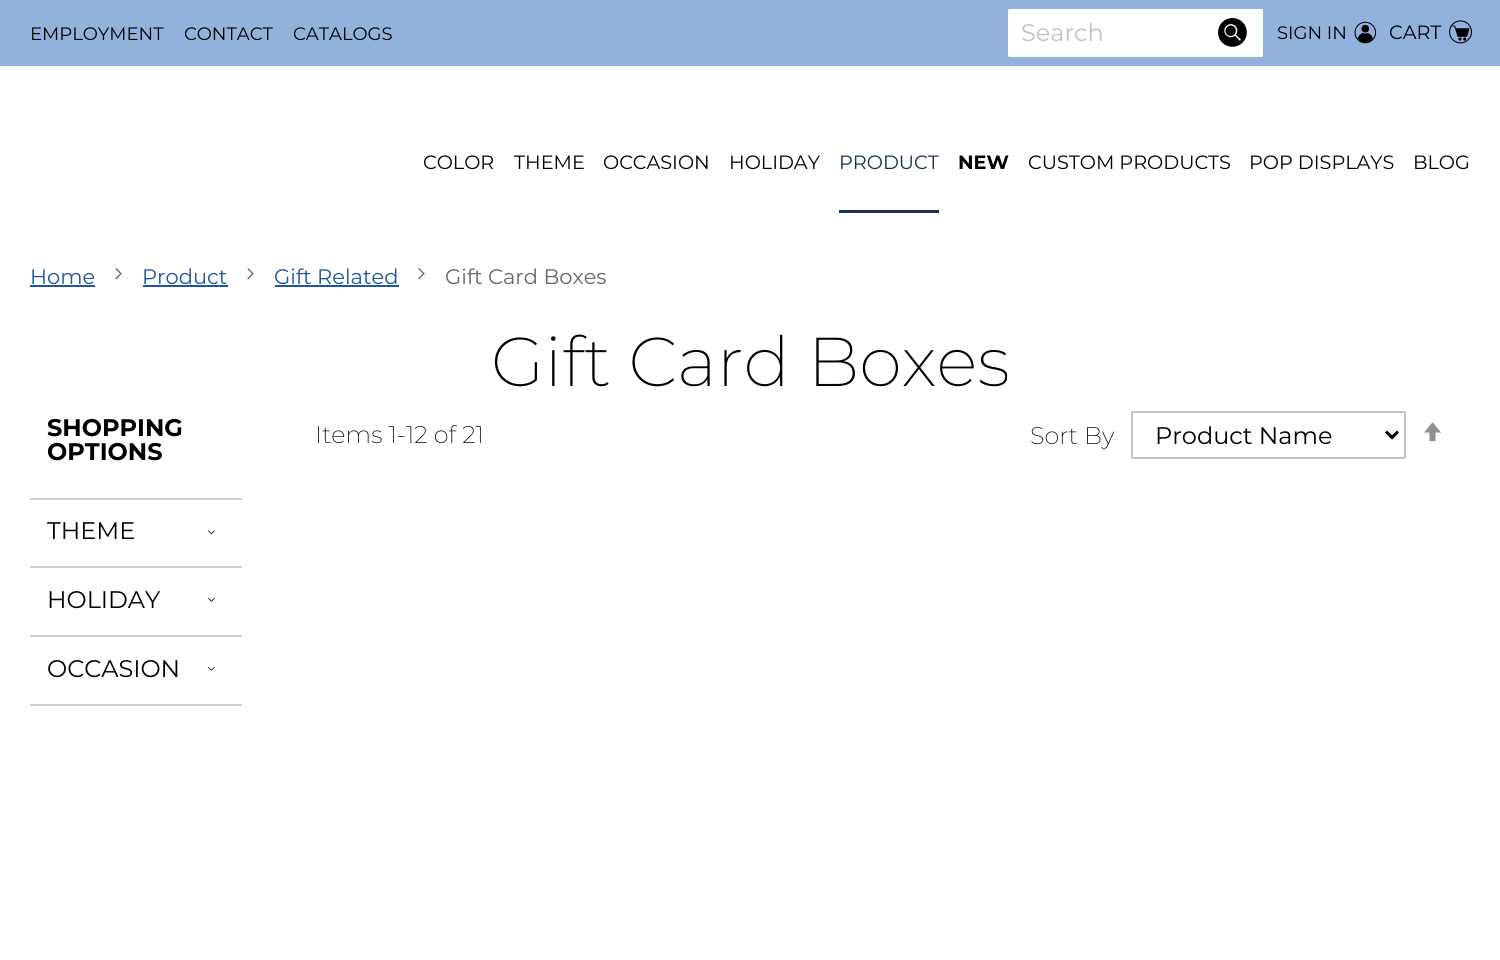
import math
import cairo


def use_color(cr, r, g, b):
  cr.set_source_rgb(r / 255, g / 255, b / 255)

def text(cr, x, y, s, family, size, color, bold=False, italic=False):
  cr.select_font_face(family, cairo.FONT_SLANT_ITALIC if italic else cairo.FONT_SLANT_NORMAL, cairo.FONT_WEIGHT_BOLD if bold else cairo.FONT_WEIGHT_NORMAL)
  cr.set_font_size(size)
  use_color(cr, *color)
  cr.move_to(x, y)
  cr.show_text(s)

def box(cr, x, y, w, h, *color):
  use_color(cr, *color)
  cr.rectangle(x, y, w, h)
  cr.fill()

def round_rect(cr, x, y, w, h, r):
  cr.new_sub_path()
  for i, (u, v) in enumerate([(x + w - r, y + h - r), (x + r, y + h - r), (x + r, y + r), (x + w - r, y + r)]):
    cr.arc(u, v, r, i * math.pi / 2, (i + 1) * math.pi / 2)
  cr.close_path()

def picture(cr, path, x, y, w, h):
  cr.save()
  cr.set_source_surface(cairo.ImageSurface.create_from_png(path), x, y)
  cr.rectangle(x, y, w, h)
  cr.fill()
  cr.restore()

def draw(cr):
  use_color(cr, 255, 255, 255)
  cr.paint()
  box(cr, 0, 0, 1500, 66, 146, 178, 221)
  use_color(cr, 255, 255, 255)
  round_rect(cr, 1008, 9, 255, 48, 1.5)
  cr.fill()
  picture(cr, "img_01.png", 1218, 18, 29, 29)
  picture(cr, "img_02.png", 1354, 21, 23, 23)
  picture(cr, "img_03.png", 1449, 20, 23, 24)
  box(cr, 839, 210, 100, 3, 23, 48, 80)
  box(cr, 30, 285, 65, 2, 34, 86, 155)
  picture(cr, "img_04.png", 115, 268, 7, 12)
  box(cr, 143, 285, 85, 2, 34, 86, 155)
  picture(cr, "img_04.png", 247, 268, 7, 12)
  box(cr, 275, 285, 124, 2, 34, 86, 155)
  picture(cr, "img_04.png", 418, 268, 7, 12)
  box(cr, 30, 498, 212, 2, 209, 209, 209)
  box(cr, 30, 566, 212, 2, 209, 209, 209)
  picture(cr, "img_05.png", 208, 530, 7, 5)
  box(cr, 30, 635, 212, 2, 209, 209, 209)
  picture(cr, "img_06.png", 208, 598, 7, 4)
  box(cr, 30, 704, 212, 2, 209, 209, 209)
  picture(cr, "img_06.png", 208, 667, 7, 4)
  round_rect(cr, 1132, 412, 273, 46, 0.5)
  use_color(cr, 194, 194, 194)
  cr.stroke()
  cr.new_path()
  cr.move_to(1386, 431.5)
  cr.line_to(1392, 437.5)
  cr.line_to(1398, 431.5)
  use_color(cr, 0, 0, 0)
  cr.set_line_width(3)
  cr.stroke()
  picture(cr, "img_07.png", 1424, 422, 17, 20)
  text(cr, 30, 40, "EMPLOYMENT", "Montserrat", 18, (0, 0, 0))
  text(cr, 184, 40, "CONTACT", "Montserrat", 18, (0, 0, 0))
  text(cr, 293, 40, "CATALOGS", "Montserrat", 18, (0, 0, 0))
  text(cr, 1021, 41, "Search", "Montserrat", 24, (194, 194, 194))
  text(cr, 1277, 39, "SIGN IN", "Montserrat", 18, (0, 0, 0))
  text(cr, 1389, 39, "CART", "Montserrat", 19.25, (0, 0, 0))
  text(cr, 423, 169, "COLOR", "Montserrat", 19.25, (0, 0, 0))
  text(cr, 514, 169, "THEME", "Montserrat", 19.25, (0, 0, 0))
  text(cr, 603, 169, "OCCASION", "Montserrat", 19.25, (0, 0, 0))
  text(cr, 729, 169, "HOLIDAY", "Montserrat", 19.25, (0, 0, 0))
  text(cr, 839, 169, "PRODUCT", "Montserrat", 19.25, (23, 48, 80))
  text(cr, 958, 169, "NEW", "Montserrat", 19.25, (0, 0, 0), bold=True)
  text(cr, 1028, 169, "CUSTOM PRODUCTS", "Montserrat", 19.25, (0, 0, 0))
  text(cr, 1249, 169, "POP DISPLAYS", "Montserrat", 19.25, (0, 0, 0))
  text(cr, 1413, 169, "BLOG", "Montserrat", 19.25, (0, 0, 0))
  text(cr, 30, 284, "Home", "Montserrat", 21, (34, 86, 155))
  text(cr, 142, 284, "Product", "Montserrat", 21, (34, 86, 155))
  text(cr, 274, 284, "Gift Related", "Montserrat", 21, (34, 86, 155))
  text(cr, 445, 284, "Gift Card Boxes", "Montserrat", 21, (102, 102, 102))
  text(cr, 491, 386, "Gift Card Boxes", "Montserrat ExtraLight", 69, (0, 0, 0))
  text(cr, 47, 436, "SHOPPING", "Montserrat", 24, (0, 0, 0), bold=True)
  text(cr, 47, 460, "OPTIONS", "Montserrat", 24, (0, 0, 0), bold=True)
  text(cr, 47, 539, "THEME", "Montserrat", 24, (0, 0, 0))
  text(cr, 47, 608, "HOLIDAY", "Montserrat", 24, (0, 0, 0))
  text(cr, 47, 677, "OCCASION", "Montserrat", 24, (0, 0, 0))
  text(cr, 315, 443, "Items 1-12 of 21", "Montserrat ExtraLight", 24, (0, 0, 0))
  text(cr, 1030, 444, "Sort By", "Montserrat ExtraLight", 24, (0, 0, 0))
  text(cr, 1155, 444, "Product Name", "Montserrat", 24, (0, 0, 0))


surface = cairo.ImageSurface(cairo.FORMAT_RGB24, 1500, 960)
cr = cairo.Context(surface)
options = cairo.FontOptions()
options.set_hint_metrics(cairo.HINT_METRICS_OFF)
options.set_hint_style(cairo.HINT_STYLE_NONE)
cr.set_font_options(options)
cr.set_miter_limit(4)
draw(cr)
surface.write_to_png("out.png")
